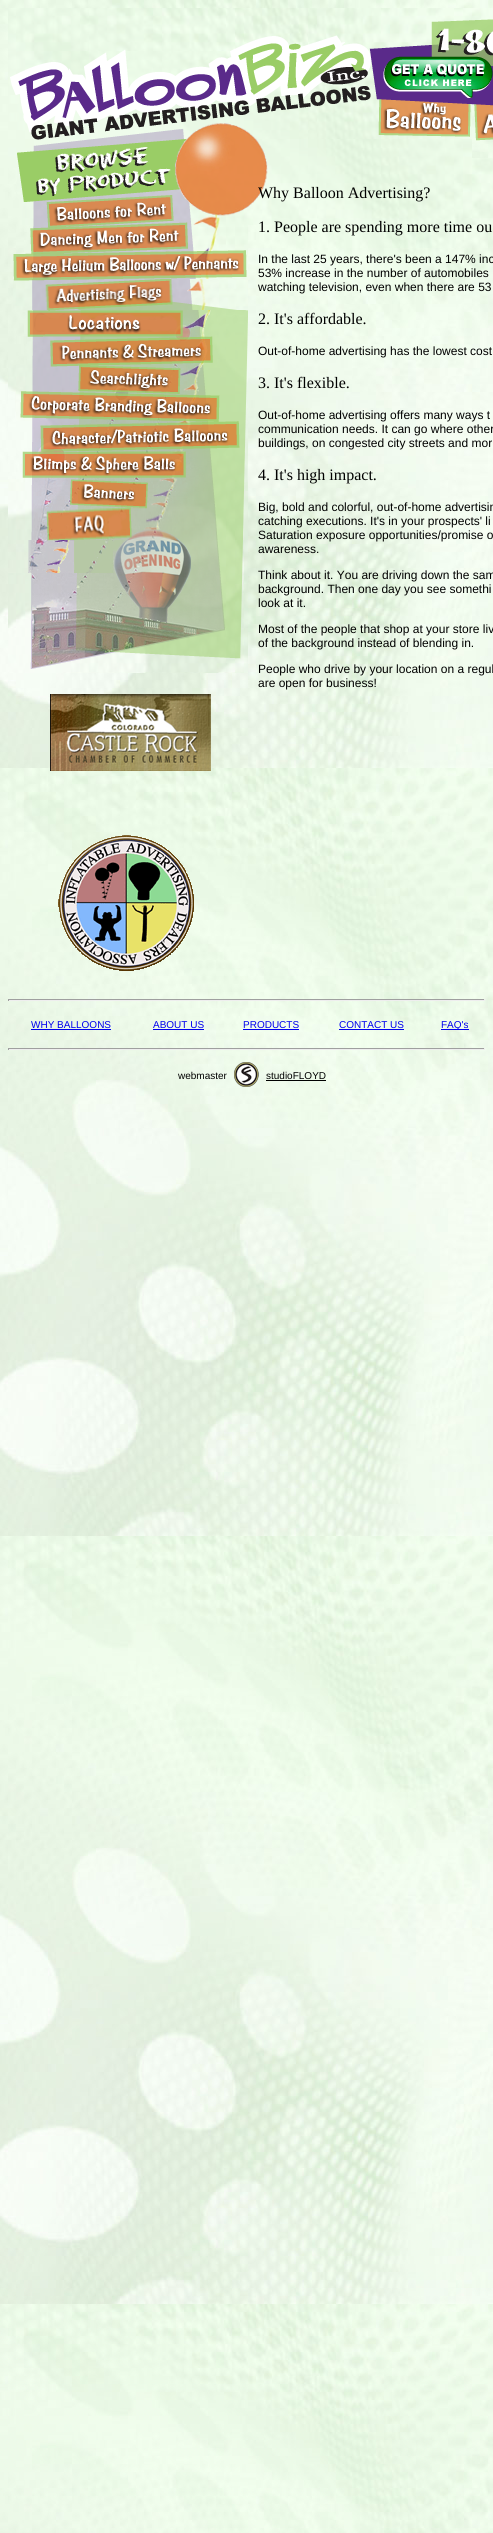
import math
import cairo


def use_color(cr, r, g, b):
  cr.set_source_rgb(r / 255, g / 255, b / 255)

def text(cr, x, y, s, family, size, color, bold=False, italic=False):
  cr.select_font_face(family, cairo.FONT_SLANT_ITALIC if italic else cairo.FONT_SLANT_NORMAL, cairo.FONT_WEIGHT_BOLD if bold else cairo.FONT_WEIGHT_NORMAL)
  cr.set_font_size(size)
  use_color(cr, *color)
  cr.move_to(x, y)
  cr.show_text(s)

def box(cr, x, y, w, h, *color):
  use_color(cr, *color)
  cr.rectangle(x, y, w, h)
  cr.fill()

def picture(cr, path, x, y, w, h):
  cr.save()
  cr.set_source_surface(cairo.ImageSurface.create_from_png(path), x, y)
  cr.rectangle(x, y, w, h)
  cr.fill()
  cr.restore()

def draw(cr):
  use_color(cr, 255, 255, 255)
  cr.paint()
  picture(cr, "img_01.png", 0, 0, 493, 2533)
  picture(cr, "img_02.png", 8, 8, 365, 150)
  picture(cr, "img_03.png", 373, 8, 120, 90)
  picture(cr, "img_04.png", 373, 98, 99, 60)
  picture(cr, "img_05.png", 472, 98, 21, 43)
  picture(cr, "img_06.png", 17, 158, 231, 36)
  picture(cr, "img_07.png", 22, 194, 226, 31)
  picture(cr, "img_08.png", 30, 225, 218, 27)
  picture(cr, "img_09.png", 13, 252, 235, 27)
  picture(cr, "img_10.png", 13, 279, 235, 31)
  picture(cr, "img_11.png", 27, 310, 221, 26)
  picture(cr, "img_12.png", 27, 336, 221, 29)
  picture(cr, "img_13.png", 8, 365, 240, 27)
  picture(cr, "img_14.png", 15, 392, 232, 29)
  picture(cr, "img_15.png", 32, 421, 216, 30)
  picture(cr, "img_16.png", 22, 451, 226, 28)
  picture(cr, "img_17.png", 8, 479, 240, 28)
  picture(cr, "img_18.png", 8, 507, 240, 33)
  picture(cr, "img_19.png", 28, 540, 220, 33)
  picture(cr, "img_20.png", 8, 573, 240, 100)
  picture(cr, "img_21.png", 50, 694, 161, 77)
  picture(cr, "img_22.png", 58, 835, 136, 136)
  picture(cr, "img_23.png", 248, 158, 245, 67)
  box(cr, 8, 999, 477, 1, 159, 159, 159)
  box(cr, 484, 999, 1, 2, 238, 238, 238)
  box(cr, 8, 1000, 477, 1, 238, 238, 238)
  box(cr, 8, 999, 1, 2, 159, 159, 159)
  box(cr, 31, 1029, 80, 1, 0, 0, 238)
  box(cr, 153, 1029, 51, 1, 0, 0, 238)
  box(cr, 243, 1029, 56, 1, 0, 0, 238)
  box(cr, 339, 1029, 65, 1, 0, 0, 238)
  box(cr, 441, 1029, 28, 1, 0, 0, 238)
  box(cr, 8, 1048, 477, 1, 159, 159, 159)
  box(cr, 484, 1048, 1, 2, 238, 238, 238)
  box(cr, 8, 1049, 477, 1, 238, 238, 238)
  box(cr, 8, 1048, 1, 2, 159, 159, 159)
  picture(cr, "img_24.png", 234, 1062, 25, 25)
  box(cr, 266, 1080, 60, 1, 0, 0, 0)
  text(cr, 258, 198, "Why Balloon Advertising?", "Liberation Serif", 16, (0, 0, 0))
  text(cr, 258, 232, "1. People are spending more time ou", "Liberation Serif", 16, (0, 0, 0))
  text(cr, 258, 263, "In the last 25 years, there's been a 147% inc", "Liberation Sans", 12, (0, 0, 0))
  text(cr, 258, 277, "53% increase in the number of automobiles", "Liberation Sans", 12, (0, 0, 0))
  text(cr, 258, 291, "watching television, even when there are 53", "Liberation Sans", 12, (0, 0, 0))
  text(cr, 258, 324, "2. It's affordable.", "Liberation Serif", 16, (0, 0, 0))
  text(cr, 258, 355, "Out-of-home advertising has the lowest cost", "Liberation Sans", 12, (0, 0, 0))
  text(cr, 258, 388, "3. It's flexible.", "Liberation Serif", 16, (0, 0, 0))
  text(cr, 258, 419, "Out-of-home advertising offers many ways t", "Liberation Sans", 12, (0, 0, 0))
  text(cr, 258, 433, "communication needs. It can go where other", "Liberation Sans", 12, (0, 0, 0))
  text(cr, 258, 447, "buildings, on congested city streets and mor", "Liberation Sans", 12, (0, 0, 0))
  text(cr, 258, 480, "4. It's high impact.", "Liberation Serif", 16, (0, 0, 0))
  text(cr, 258, 511, "Big, bold and colorful, out-of-home advertisin", "Liberation Sans", 12, (0, 0, 0))
  text(cr, 258, 525, "catching executions. It's in your prospects' li", "Liberation Sans", 12, (0, 0, 0))
  text(cr, 258, 539, "Saturation exposure opportunities/promise o", "Liberation Sans", 12, (0, 0, 0))
  text(cr, 258, 553, "awareness.", "Liberation Sans", 12, (0, 0, 0))
  text(cr, 258, 579, "Think about it. You are driving down the sam", "Liberation Sans", 12, (0, 0, 0))
  text(cr, 258, 593, "background. Then one day you see somethi", "Liberation Sans", 12, (0, 0, 0))
  text(cr, 258, 607, "look at it.", "Liberation Sans", 12, (0, 0, 0))
  text(cr, 258, 633, "Most of the people that shop at your store liv", "Liberation Sans", 12, (0, 0, 0))
  text(cr, 258, 647, "of the background instead of blending in.", "Liberation Sans", 12, (0, 0, 0))
  text(cr, 258, 673, "People who drive by your location on a regul", "Liberation Sans", 12, (0, 0, 0))
  text(cr, 258, 687, "are open for business!", "Liberation Sans", 12, (0, 0, 0))
  text(cr, 31, 1028, "WHY BALLOONS", "Liberation Sans", 10, (0, 0, 238))
  text(cr, 153, 1028, "ABOUT US", "Liberation Sans", 10, (0, 0, 238))
  text(cr, 243, 1028, "PRODUCTS", "Liberation Sans", 10, (0, 0, 238))
  text(cr, 339, 1028, "CONTACT US", "Liberation Sans", 10, (0, 0, 238))
  text(cr, 441, 1028, "FAQ's", "Liberation Sans", 10, (0, 0, 238))
  text(cr, 178, 1079, "webmaster", "Liberation Sans", 10, (0, 0, 0))
  text(cr, 266, 1079, "studioFLOYD", "Liberation Sans", 10, (0, 0, 0))


surface = cairo.ImageSurface(cairo.FORMAT_RGB24, 493, 2533)
cr = cairo.Context(surface)
options = cairo.FontOptions()
options.set_hint_metrics(cairo.HINT_METRICS_OFF)
options.set_hint_style(cairo.HINT_STYLE_NONE)
cr.set_font_options(options)
cr.set_miter_limit(4)
draw(cr)
surface.write_to_png("out.png")
